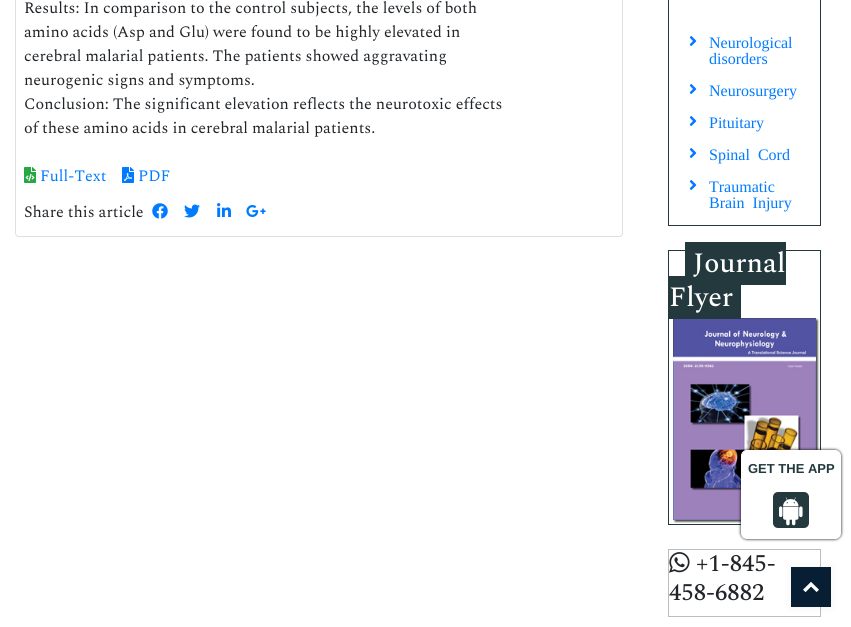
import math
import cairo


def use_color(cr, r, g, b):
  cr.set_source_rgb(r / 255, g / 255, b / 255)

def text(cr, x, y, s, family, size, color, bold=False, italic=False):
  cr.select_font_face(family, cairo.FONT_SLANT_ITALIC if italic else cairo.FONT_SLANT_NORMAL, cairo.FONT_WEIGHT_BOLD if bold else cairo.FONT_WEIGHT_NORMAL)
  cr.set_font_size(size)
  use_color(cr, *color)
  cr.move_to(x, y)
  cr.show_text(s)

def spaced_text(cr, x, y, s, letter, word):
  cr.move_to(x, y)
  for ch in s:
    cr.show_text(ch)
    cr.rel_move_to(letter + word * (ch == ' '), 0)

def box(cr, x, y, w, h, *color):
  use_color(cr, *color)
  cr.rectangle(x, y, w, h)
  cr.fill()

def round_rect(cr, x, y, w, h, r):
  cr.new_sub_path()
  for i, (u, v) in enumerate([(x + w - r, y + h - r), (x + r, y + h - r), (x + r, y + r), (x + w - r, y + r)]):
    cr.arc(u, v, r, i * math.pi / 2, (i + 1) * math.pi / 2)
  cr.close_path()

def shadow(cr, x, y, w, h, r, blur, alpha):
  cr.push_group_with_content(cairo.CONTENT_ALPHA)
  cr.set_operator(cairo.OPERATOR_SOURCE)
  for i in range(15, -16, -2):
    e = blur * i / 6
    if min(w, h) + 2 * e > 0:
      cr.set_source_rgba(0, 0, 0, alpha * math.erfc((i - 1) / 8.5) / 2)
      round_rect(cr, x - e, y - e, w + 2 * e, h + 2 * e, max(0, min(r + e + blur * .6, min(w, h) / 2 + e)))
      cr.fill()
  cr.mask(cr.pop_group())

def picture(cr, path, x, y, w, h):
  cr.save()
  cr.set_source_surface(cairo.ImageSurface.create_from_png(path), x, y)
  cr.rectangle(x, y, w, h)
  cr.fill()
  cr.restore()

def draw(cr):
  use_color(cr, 255, 255, 255)
  cr.paint()
  round_rect(cr, 15.5, -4.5, 607, 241, 3.5)
  use_color(cr, 223, 223, 223)
  cr.set_line_width(1)
  cr.stroke()
  picture(cr, "img_01.png", 24, 167, 12, 16)
  picture(cr, "img_02.png", 122, 167, 12, 16)
  picture(cr, "img_03.png", 152, 203, 16, 16)
  picture(cr, "img_04.png", 184, 204, 16, 14)
  picture(cr, "img_05.png", 217, 203, 14, 14)
  picture(cr, "img_06.png", 246, 205, 20, 12)
  cr.rectangle(668.5, -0.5, 152, 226)
  use_color(cr, 35, 57, 61)
  cr.stroke()
  picture(cr, "img_07.png", 689, 36, 8, 10)
  picture(cr, "img_07.png", 689, 84, 8, 10)
  picture(cr, "img_07.png", 689, 116, 8, 10)
  picture(cr, "img_07.png", 689, 148, 8, 10)
  picture(cr, "img_07.png", 689, 180, 8, 10)
  cr.rectangle(668.5, 250.5, 152, 274)
  cr.stroke()
  box(cr, 685, 242, 101, 43, 35, 57, 61)
  picture(cr, "img_08.png", 669, 317, 151, 207)
  box(cr, 669, 276, 72, 43, 35, 57, 61)
  cr.rectangle(668.5, 549.5, 152, 67)
  use_color(cr, 189, 189, 189)
  cr.stroke()
  picture(cr, "img_09.png", 669, 552, 21, 21)
  use_color(cr, 0, 0, 0)
  shadow(cr, 741, 450, 100, 89, 6, 1.5, 1)
  use_color(cr, 255, 255, 255)
  round_rect(cr, 741.5, 450.5, 99, 88, 5.5)
  cr.fill_preserve()
  cr.stroke()
  use_color(cr, 35, 57, 61)
  round_rect(cr, 773, 492, 36, 36, 5)
  cr.fill()
  picture(cr, "img_10.png", 779, 497, 24, 29)
  use_color(cr, 0, 0, 0)
  shadow(cr, 791, 567, 40, 40, 0, 5, 0.05)
  box(cr, 791, 567, 40, 40, 7, 30, 51)
  picture(cr, "img_11.png", 803, 582, 16, 11)
  text(cr, 24, 13, "Results: In comparison to the control subjects, the levels of both", "Spectral", 16, (33, 37, 41))
  text(cr, 24, 37, "amino acids (Asp and Glu) were found to be highly elevated in", "Spectral", 16, (33, 37, 41))
  text(cr, 24, 61, "cerebral malarial patients. The patients showed aggravating", "Spectral", 16, (33, 37, 41))
  text(cr, 24, 85, "neurogenic signs and symptoms.", "Spectral", 16, (33, 37, 41))
  text(cr, 24, 109, "Conclusion: The significant elevation reflects the neurotoxic effects", "Spectral", 16, (33, 37, 41))
  text(cr, 24, 133, "of these amino acids in cerebral malarial patients.", "Spectral", 16, (33, 37, 41))
  text(cr, 40, 181, "Full-Text", "Spectral", 16, (0, 123, 255))
  text(cr, 138, 181, "PDF", "Spectral", 16, (0, 123, 255))
  text(cr, 24, 217, "Share this article", "Spectral", 16, (33, 37, 41))
  text(cr, 709, 48, "Neurological", "Liberation Serif", 16, (0, 123, 255))
  text(cr, 709, 64, "disorders", "Liberation Serif", 16, (0, 123, 255))
  text(cr, 709, 96, "Neurosurgery", "Liberation Serif", 16, (0, 123, 255))
  text(cr, 709, 128, "Pituitary", "Liberation Serif", 16, (0, 123, 255))
  spaced_text(cr, 709, 160, "Spinal Cord", 0, 4)
  text(cr, 709, 192, "Traumatic", "Liberation Serif", 16, (0, 123, 255))
  spaced_text(cr, 709, 208, "Brain Injury", 0, 4)
  text(cr, 693, 272, "Journal", "Spectral Medium", 28, (255, 255, 255))
  text(cr, 669, 306, "Flyer", "Spectral Medium", 28, (255, 255, 255))
  text(cr, 696, 571, "+1-845-", "Spectral Medium", 24, (33, 37, 41))
  text(cr, 669, 600, "458-6882", "Spectral Medium", 24, (33, 37, 41))
  text(cr, 748, 473, "GET THE APP", "Liberation Sans", 13, (35, 57, 61), bold=True)


surface = cairo.ImageSurface(cairo.FORMAT_RGB24, 851, 627)
cr = cairo.Context(surface)
options = cairo.FontOptions()
options.set_hint_metrics(cairo.HINT_METRICS_OFF)
options.set_hint_style(cairo.HINT_STYLE_NONE)
cr.set_font_options(options)
cr.set_miter_limit(4)
draw(cr)
surface.write_to_png("out.png")
